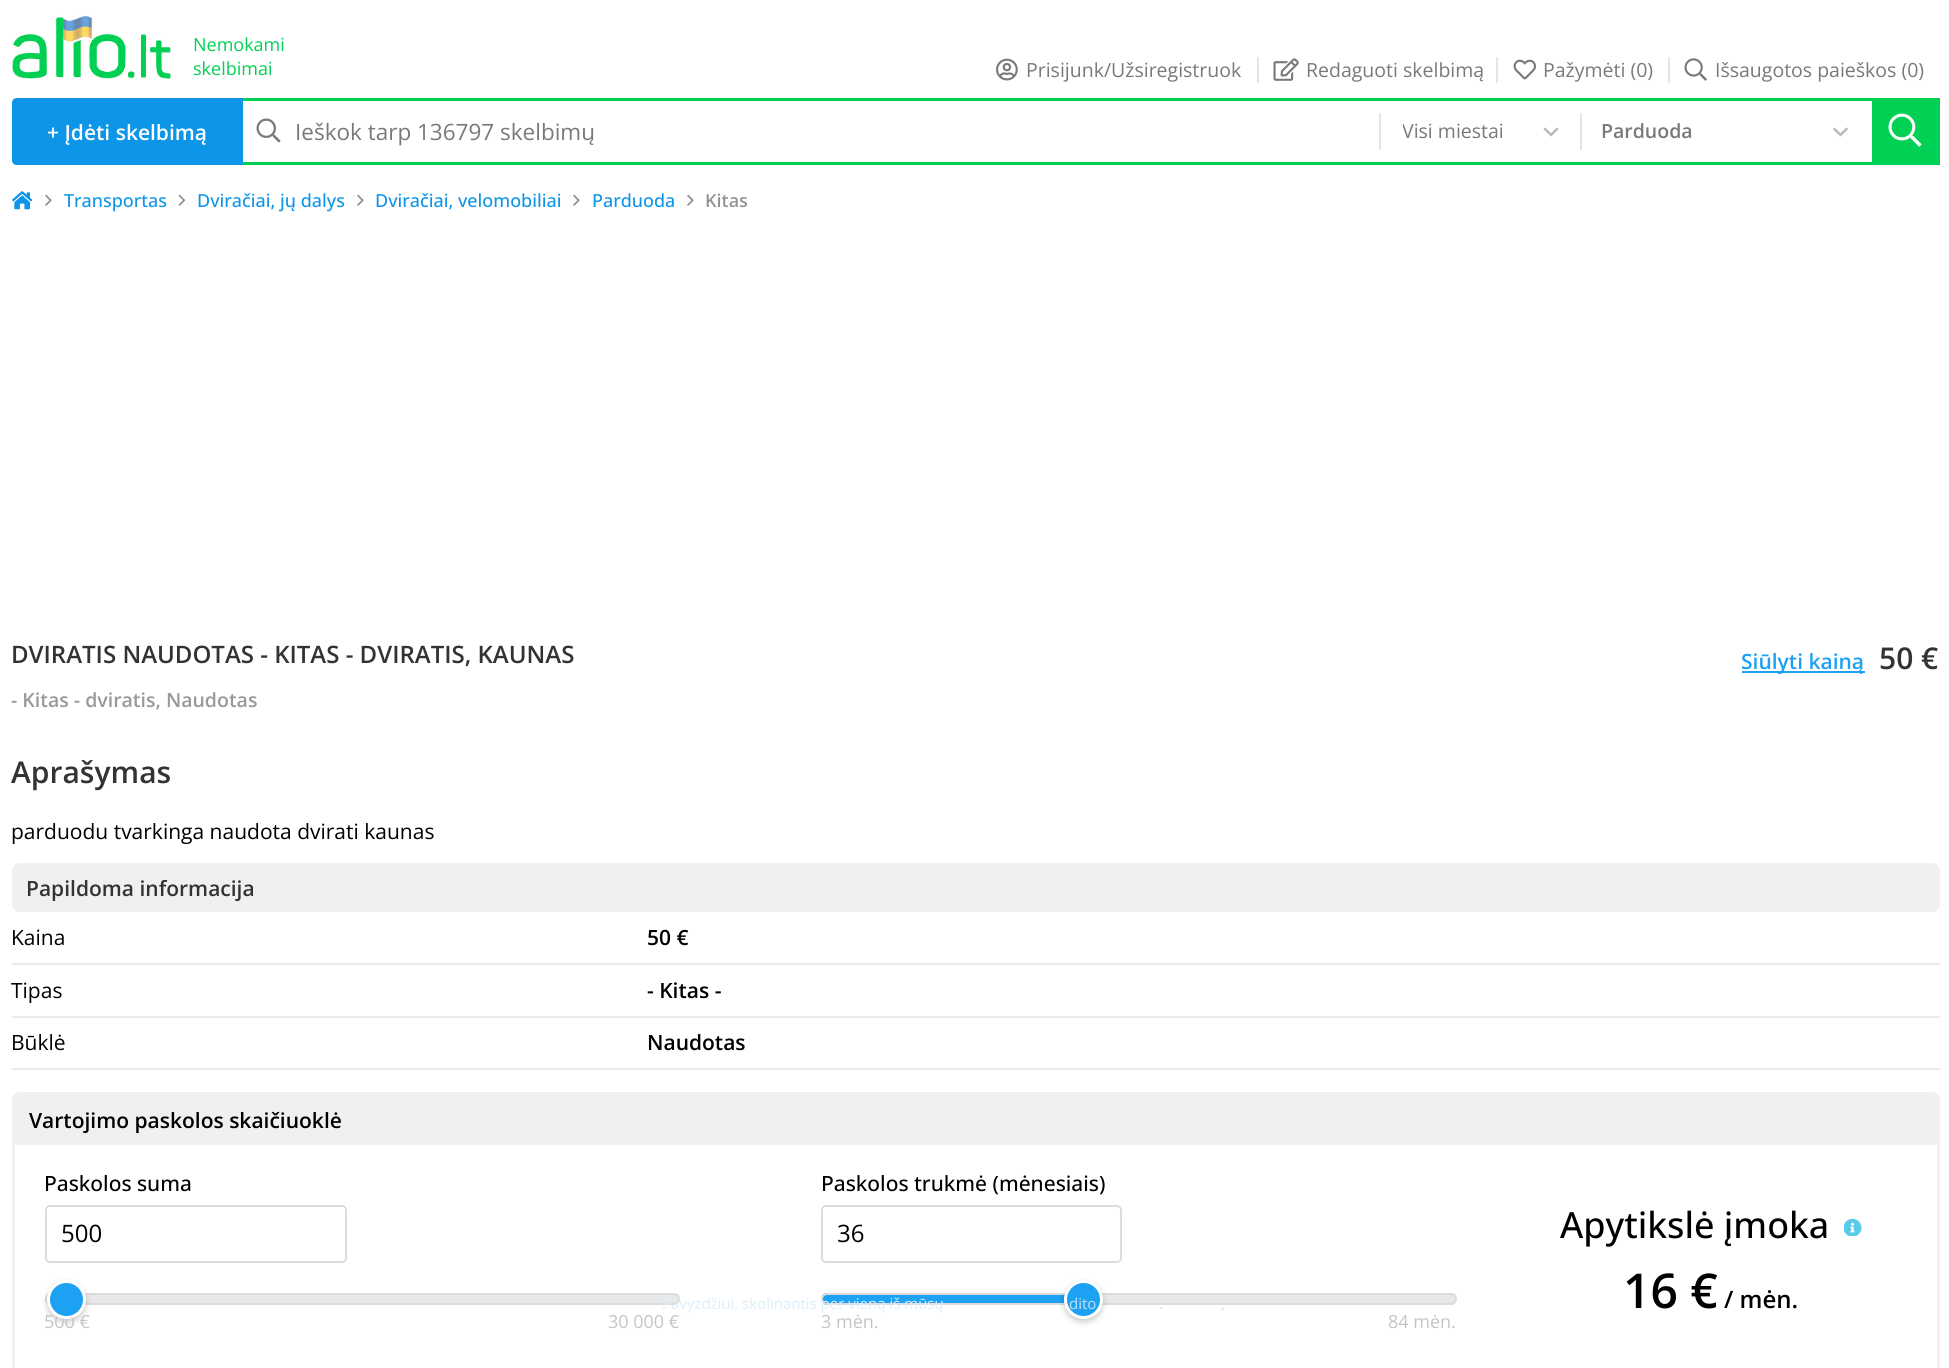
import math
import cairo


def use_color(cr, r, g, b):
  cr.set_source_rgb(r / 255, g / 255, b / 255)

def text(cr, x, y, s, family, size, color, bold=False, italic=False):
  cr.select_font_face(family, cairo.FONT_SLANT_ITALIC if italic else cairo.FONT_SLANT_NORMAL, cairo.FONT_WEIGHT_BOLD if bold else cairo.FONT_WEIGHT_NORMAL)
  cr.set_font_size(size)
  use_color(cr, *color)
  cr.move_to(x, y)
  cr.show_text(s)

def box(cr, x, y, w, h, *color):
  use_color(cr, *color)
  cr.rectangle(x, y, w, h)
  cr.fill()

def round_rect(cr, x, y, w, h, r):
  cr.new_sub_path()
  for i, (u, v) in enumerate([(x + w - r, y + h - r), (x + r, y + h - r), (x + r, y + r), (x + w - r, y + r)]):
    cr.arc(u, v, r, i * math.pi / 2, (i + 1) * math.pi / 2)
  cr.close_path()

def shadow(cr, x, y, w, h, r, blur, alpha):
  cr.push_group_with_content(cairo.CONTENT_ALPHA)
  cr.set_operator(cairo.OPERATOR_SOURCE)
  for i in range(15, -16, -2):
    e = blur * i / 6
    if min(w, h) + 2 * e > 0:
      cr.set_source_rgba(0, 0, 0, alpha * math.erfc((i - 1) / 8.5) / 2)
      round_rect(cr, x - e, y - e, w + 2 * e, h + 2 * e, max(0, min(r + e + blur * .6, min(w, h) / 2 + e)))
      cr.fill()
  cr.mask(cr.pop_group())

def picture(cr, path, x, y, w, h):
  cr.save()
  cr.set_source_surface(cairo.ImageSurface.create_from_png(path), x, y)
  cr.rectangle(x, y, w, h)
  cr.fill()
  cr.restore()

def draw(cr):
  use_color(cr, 255, 255, 255)
  cr.paint()
  picture(cr, "img_01.png", 12, 15, 159, 64)
  box(cr, 1257, 57, 2, 26, 229, 229, 229)
  picture(cr, "img_02.png", 996, 58, 22, 23)
  box(cr, 1496, 57, 2, 26, 229, 229, 229)
  picture(cr, "img_03.png", 1273, 58, 26, 23)
  box(cr, 1668, 57, 2, 26, 229, 229, 229)
  picture(cr, "img_04.png", 1513, 59, 23, 21)
  picture(cr, "img_05.png", 1684, 58, 23, 23)
  use_color(cr, 13, 149, 232)
  cr.new_path()
  cr.move_to(17, 98)
  cr.line_to(243, 98)
  cr.line_to(243, 165)
  cr.line_to(17, 165)
  cr.curve_to(14, 165, 12, 163, 12, 160)
  cr.line_to(12, 103)
  cr.curve_to(12, 100, 14, 98, 17, 98)
  cr.close_path()
  cr.fill()
  picture(cr, "img_06.png", 256, 118, 25, 25)
  box(cr, 1379, 113, 2, 37, 229, 229, 229)
  box(cr, 243, 98, 1629, 3, 0, 208, 83)
  box(cr, 243, 162, 1629, 3, 0, 208, 83)
  box(cr, 1580, 113, 2, 37, 229, 229, 229)
  picture(cr, "img_07.png", 1543, 127, 16, 10)
  picture(cr, "img_08.png", 1833, 127, 15, 10)
  box(cr, 1872, 98, 68, 67, 0, 208, 83)
  picture(cr, "img_09.png", 1888, 113, 34, 34)
  picture(cr, "img_10.png", 12, 191, 21, 19)
  picture(cr, "img_11.png", 45, 194, 7, 12)
  picture(cr, "img_12.png", 178, 194, 8, 12)
  picture(cr, "img_11.png", 357, 194, 7, 12)
  picture(cr, "img_11.png", 573, 194, 7, 12)
  picture(cr, "img_11.png", 687, 194, 7, 12)
  box(cr, 1742, 671, 123, 2, 29, 161, 243)
  use_color(cr, 240, 240, 240)
  round_rect(cr, 12, 863, 1928, 49, 8)
  cr.fill()
  box(cr, 12, 963, 1928, 2, 235, 235, 235)
  box(cr, 12, 1016, 1928, 2, 235, 235, 235)
  box(cr, 12, 1068, 1928, 2, 235, 235, 235)
  round_rect(cr, 13.5, 1093.5, 1925, 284, 6.5)
  use_color(cr, 240, 240, 240)
  cr.set_line_width(3)
  cr.stroke()
  box(cr, 15, 1095, 1922, 50, 240, 240, 240)
  round_rect(cr, 46, 1206, 300, 56, 4)
  use_color(cr, 220, 220, 220)
  cr.set_line_width(2)
  cr.stroke()
  cr.save()
  round_rect(cr, 45, 1293, 635, 12, 6)
  cr.clip()
  box(cr, 47, 1293, 631, 12, 232, 232, 232)
  cr.restore()
  round_rect(cr, 46, 1294, 633, 10, 5)
  cr.stroke()
  use_color(cr, 0, 0, 0)
  shadow(cr, 47, 1283, 39, 39, 19.5, 3, 0.2)
  round_rect(cr, 822, 1206, 299, 56, 4)
  use_color(cr, 220, 220, 220)
  cr.stroke()
  cr.save()
  round_rect(cr, 821, 1293, 636, 12, 6)
  cr.clip()
  box(cr, 822, 1293, 243, 12, 29, 161, 242)
  box(cr, 1102, 1293, 353, 12, 232, 232, 232)
  cr.restore()
  round_rect(cr, 822, 1294, 634, 10, 5)
  cr.stroke()
  use_color(cr, 0, 0, 0)
  shadow(cr, 1064, 1283, 39, 39, 19.5, 3, 0.2)
  use_color(cr, 29, 161, 242)
  cr.arc(1083.5, 1299.5, 18, 0, 2 * math.pi)
  cr.fill_preserve()
  use_color(cr, 255, 255, 255)
  cr.set_line_width(3)
  cr.stroke()
  picture(cr, "img_13.png", 1844, 1218, 18, 18)
  text(cr, 193, 51, "Nemokami", "Open Sans", 18, (0, 208, 83))
  text(cr, 193, 75, "skelbimai", "Open Sans", 18, (0, 208, 83))
  text(cr, 1026, 77, "Prisijunk/Užsiregistruok", "Open Sans", 19.5, (121, 121, 121))
  text(cr, 1306, 77, "Redaguoti skelbimą", "Open Sans", 19.5, (121, 121, 121))
  text(cr, 1543, 77, "Pažymėti (0)", "Open Sans", 19.5, (121, 121, 121))
  text(cr, 1715, 77, "Išsaugotos paieškos (0)", "Open Sans", 19.5, (121, 121, 121))
  text(cr, 47, 140, "+ Įdėti skelbimą", "Open Sans SemiBold", 21, (255, 255, 255))
  text(cr, 295, 140, "Ieškok tarp 136797 skelbimų", "Open Sans", 22.5, (121, 121, 121))
  cr.save()
  cr.rectangle(1403, 113, 139, 36)
  cr.clip()
  text(cr, 1402, 138, "Visi miestai", "Open Sans", 19.5, (121, 121, 121))
  cr.restore()
  text(cr, 1601, 138, "Parduoda", "Open Sans SemiBold", 19.5, (121, 121, 121))
  text(cr, 64, 207, "Transportas", "Open Sans Medium", 18, (13, 149, 232))
  text(cr, 197, 207, "Dviračiai, jų dalys", "Open Sans Medium", 18, (13, 149, 232))
  text(cr, 375, 207, "Dviračiai, velomobiliai", "Open Sans Medium", 18, (13, 149, 232))
  text(cr, 592, 207, "Parduoda", "Open Sans Medium", 18, (13, 149, 232))
  text(cr, 705, 207, "Kitas", "Open Sans SemiBold", 18, (147, 147, 147))
  text(cr, 11, 663, "DVIRATIS NAUDOTAS - KITAS - DVIRATIS, KAUNAS", "Open Sans SemiBold", 24, (51, 51, 51))
  text(cr, 1741, 669, "Siūlyti kainą", "Open Sans SemiBold", 21, (29, 161, 243))
  text(cr, 1879, 669, "50 €", "Open Sans SemiBold", 30, (51, 51, 51))
  text(cr, 11, 707, "- Kitas - dviratis, Naudotas", "Open Sans SemiBold", 19.5, (153, 153, 153))
  text(cr, 11, 783, "Aprašymas", "Open Sans SemiBold", 30, (51, 51, 51))
  text(cr, 11, 839, "parduodu tvarkinga naudota dvirati kaunas", "Open Sans", 21, (0, 0, 0))
  text(cr, 26, 896, "Papildoma informacija", "Open Sans SemiBold", 21, (51, 51, 51))
  text(cr, 11, 945, "Kaina", "Open Sans", 21, (0, 0, 0))
  text(cr, 647, 945, "50 €", "Open Sans SemiBold", 21, (0, 0, 0))
  text(cr, 11, 998, "Tipas", "Open Sans", 21, (0, 0, 0))
  text(cr, 647, 998, "- Kitas -", "Open Sans SemiBold", 21, (0, 0, 0))
  text(cr, 11, 1050, "Būklė", "Open Sans", 21, (0, 0, 0))
  text(cr, 647, 1050, "Naudotas", "Open Sans SemiBold", 21, (0, 0, 0))
  text(cr, 29, 1128, "Vartojimo paskolos skaičiuoklė", "Open Sans SemiBold", 21, (0, 0, 0))
  text(cr, 44, 1191, "Paskolos suma", "Open Sans Medium", 21, (0, 0, 0))
  text(cr, 61, 1242, "500", "Open Sans", 24, (0, 0, 0))
  text(cr, 44, 1328, "500 €", "Open Sans", 18, (196, 196, 196))
  use_color(cr, 29, 161, 242)
  cr.new_path()
  cr.arc(66.5, 1299.5, 18, 0, 2 * math.pi)
  cr.fill_preserve()
  use_color(cr, 255, 255, 255)
  cr.stroke()
  text(cr, 608, 1328, "30 000 €", "Open Sans", 18, (196, 196, 196))
  text(cr, 821, 1191, "Paskolos trukmė (mėnesiais)", "Open Sans Medium", 21, (0, 0, 0))
  text(cr, 837, 1242, "36", "Open Sans", 24, (0, 0, 0))
  text(cr, 821, 1328, "3 mėn.", "Open Sans", 18, (196, 196, 196))
  text(cr, 1388, 1328, "84 mėn.", "Open Sans", 18, (196, 196, 196))
  text(cr, 1560, 1238, "Apytikslė įmoka", "Open Sans Medium", 36, (0, 0, 0))
  text(cr, 1623, 1308, "16 €", "Open Sans SemiBold", 48, (0, 0, 0))
  text(cr, 1724, 1308, "/ mėn.", "Open Sans SemiBold", 24, (0, 0, 0))
  text(cr, 662, 1309, "Pavyzdžiui, skolinantis per vieną iš mūsų", "Open Sans", 15, (220, 238, 249))
  text(cr, 1069, 1309, "dito", "Open Sans", 15, (196, 225, 242))
  text(cr, 1159, 1309, ".", "Open Sans", 15, (196, 225, 242))
  text(cr, 1221, 1309, ",", "Open Sans", 15, (196, 225, 242))


surface = cairo.ImageSurface(cairo.FORMAT_RGB24, 1949, 1368)
cr = cairo.Context(surface)
options = cairo.FontOptions()
options.set_hint_metrics(cairo.HINT_METRICS_OFF)
options.set_hint_style(cairo.HINT_STYLE_NONE)
cr.set_font_options(options)
cr.set_miter_limit(4)
draw(cr)
surface.write_to_png("out.png")
